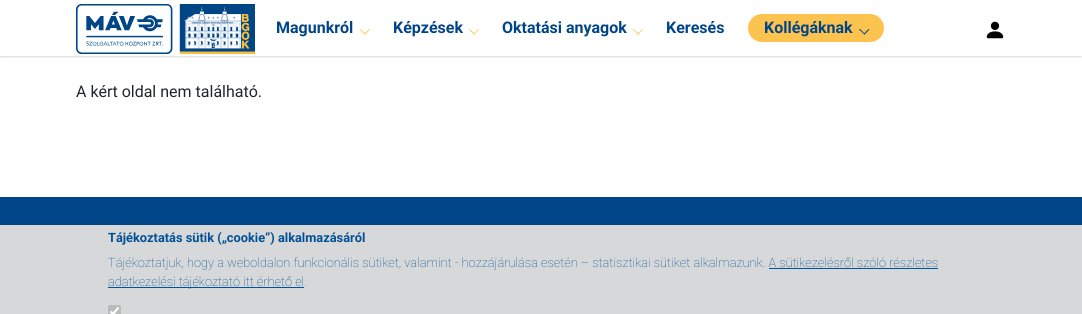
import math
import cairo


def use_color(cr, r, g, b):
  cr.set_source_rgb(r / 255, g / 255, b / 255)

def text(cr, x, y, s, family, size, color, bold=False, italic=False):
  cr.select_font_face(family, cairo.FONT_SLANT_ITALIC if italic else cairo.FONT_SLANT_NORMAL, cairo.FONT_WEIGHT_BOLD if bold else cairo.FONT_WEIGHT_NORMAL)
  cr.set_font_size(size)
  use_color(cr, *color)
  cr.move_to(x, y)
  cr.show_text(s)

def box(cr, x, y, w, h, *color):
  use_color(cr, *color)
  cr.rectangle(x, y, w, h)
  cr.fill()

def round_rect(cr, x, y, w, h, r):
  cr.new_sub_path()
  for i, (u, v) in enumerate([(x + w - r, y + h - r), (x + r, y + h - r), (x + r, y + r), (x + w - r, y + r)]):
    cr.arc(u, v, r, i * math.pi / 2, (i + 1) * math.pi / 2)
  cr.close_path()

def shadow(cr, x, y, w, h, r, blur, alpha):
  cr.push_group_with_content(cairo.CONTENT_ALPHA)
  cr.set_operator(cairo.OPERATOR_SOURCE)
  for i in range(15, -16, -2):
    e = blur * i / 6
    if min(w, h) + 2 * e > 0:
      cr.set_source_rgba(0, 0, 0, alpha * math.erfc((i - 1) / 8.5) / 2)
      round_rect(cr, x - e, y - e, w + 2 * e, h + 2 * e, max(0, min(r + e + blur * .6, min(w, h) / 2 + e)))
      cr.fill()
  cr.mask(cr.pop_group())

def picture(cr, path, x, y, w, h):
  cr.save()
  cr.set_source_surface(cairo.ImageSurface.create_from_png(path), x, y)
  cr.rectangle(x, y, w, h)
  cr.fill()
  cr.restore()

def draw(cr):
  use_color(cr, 255, 255, 255)
  cr.paint()
  cr.save()
  cr.rectangle(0, 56, 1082, 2)
  cr.clip()
  use_color(cr, 0, 0, 0)
  shadow(cr, 0, 1, 1082, 56, 0, 1, 0.15)
  cr.restore()
  picture(cr, "img_01.png", 76, 4, 179, 50)
  use_color(cr, 252, 195, 79)
  cr.new_path()
  cr.move_to(370, 29.5)
  cr.line_to(365, 34.5)
  cr.line_to(364, 34)
  cr.line_to(369.5, 29)
  cr.close_path()
  cr.fill()
  cr.new_path()
  cr.move_to(365.5, 34)
  cr.line_to(365, 34.5)
  cr.line_to(360, 29.5)
  cr.line_to(360.5, 29)
  cr.close_path()
  cr.fill()
  cr.new_path()
  cr.move_to(479, 29.5)
  cr.line_to(474, 34.5)
  cr.line_to(473.5, 34)
  cr.line_to(478.5, 29)
  cr.close_path()
  cr.fill()
  cr.new_path()
  cr.move_to(475, 34)
  cr.line_to(474, 34.5)
  cr.line_to(469, 29.5)
  cr.line_to(469.5, 29)
  cr.close_path()
  cr.fill()
  cr.new_path()
  cr.move_to(643, 29.5)
  cr.line_to(638, 34.5)
  cr.line_to(637.5, 34)
  cr.line_to(642.5, 29)
  cr.close_path()
  cr.fill()
  cr.new_path()
  cr.move_to(639, 34)
  cr.line_to(638, 34.5)
  cr.line_to(633, 29.5)
  cr.line_to(633.5, 29)
  cr.close_path()
  cr.fill()
  round_rect(cr, 748, 14, 136, 28, 14)
  cr.fill()
  use_color(cr, 0, 69, 135)
  cr.new_path()
  cr.move_to(869.5, 29.5)
  cr.line_to(864.5, 34.5)
  cr.line_to(863.5, 34)
  cr.line_to(868.5, 29)
  cr.close_path()
  cr.fill()
  cr.new_path()
  cr.move_to(865, 34)
  cr.line_to(864.5, 34.5)
  cr.line_to(859, 29.5)
  cr.line_to(860, 29)
  cr.close_path()
  cr.fill()
  picture(cr, "img_02.png", 986, 21, 18, 18)
  box(cr, 0, 197, 1082, 28, 0, 69, 135)
  box(cr, 0, 225, 1082, 89, 214, 216, 217)
  box(cr, 769, 268, 169, 1, 2, 80, 149)
  box(cr, 108, 287, 196, 1, 2, 80, 149)
  use_color(cr, 185, 187, 187)
  round_rect(cr, 108, 305, 13, 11, 2)
  cr.fill()
  cr.new_path()
  cr.move_to(110.5, 311.5)
  cr.line_to(113, 314)
  cr.line_to(118.5, 307.5)
  use_color(cr, 255, 255, 255)
  cr.set_line_width(2.1)
  cr.stroke()
  text(cr, 276, 33, "Magunkról", "Roboto", 16, (0, 69, 135), bold=True)
  text(cr, 393, 33, "Képzések", "Roboto", 16, (0, 69, 135), bold=True)
  text(cr, 502, 33, "Oktatási anyagok", "Roboto", 16, (0, 69, 135), bold=True)
  text(cr, 666, 33, "Keresés", "Roboto", 16, (0, 69, 135), bold=True)
  text(cr, 764, 33, "Kollégáknak", "Roboto", 16, (0, 69, 135), bold=True)
  text(cr, 76, 97, "A kért oldal nem található.", "Roboto", 16, (33, 37, 41))
  text(cr, 108, 242, "Tájékoztatás sütik („cookie”) alkalmazásáról", "Roboto", 12.8, (2, 80, 149), bold=True)
  text(cr, 108, 267, "Tájékoztatjuk, hogy a weboldalon funkcionális sütiket, valamint - hozzájárulása esetén – statisztikai sütiket alkalmazunk. A sütikezelésről szóló részletes", "Roboto Thin", 12.8, (2, 80, 149))
  text(cr, 108, 286, "adatkezelési tájékoztató itt érhető el.", "Roboto Thin", 12.8, (2, 80, 149))


surface = cairo.ImageSurface(cairo.FORMAT_RGB24, 1082, 314)
cr = cairo.Context(surface)
options = cairo.FontOptions()
options.set_hint_metrics(cairo.HINT_METRICS_OFF)
options.set_hint_style(cairo.HINT_STYLE_NONE)
cr.set_font_options(options)
cr.set_miter_limit(4)
draw(cr)
surface.write_to_png("out.png")
